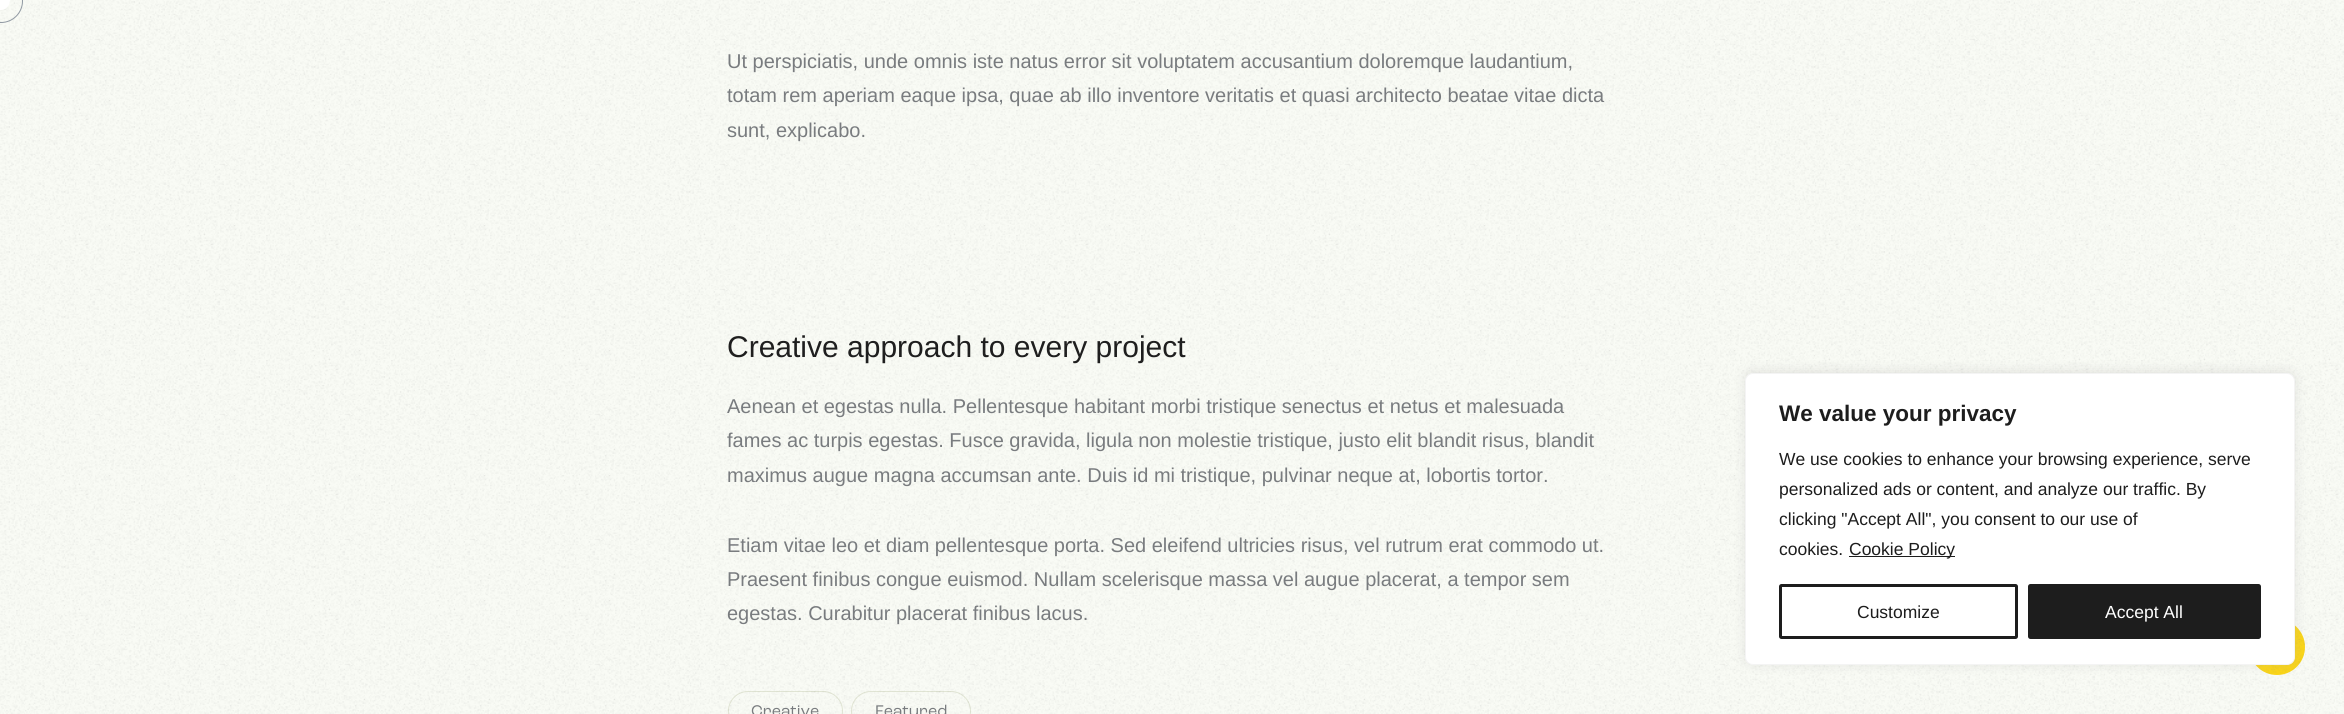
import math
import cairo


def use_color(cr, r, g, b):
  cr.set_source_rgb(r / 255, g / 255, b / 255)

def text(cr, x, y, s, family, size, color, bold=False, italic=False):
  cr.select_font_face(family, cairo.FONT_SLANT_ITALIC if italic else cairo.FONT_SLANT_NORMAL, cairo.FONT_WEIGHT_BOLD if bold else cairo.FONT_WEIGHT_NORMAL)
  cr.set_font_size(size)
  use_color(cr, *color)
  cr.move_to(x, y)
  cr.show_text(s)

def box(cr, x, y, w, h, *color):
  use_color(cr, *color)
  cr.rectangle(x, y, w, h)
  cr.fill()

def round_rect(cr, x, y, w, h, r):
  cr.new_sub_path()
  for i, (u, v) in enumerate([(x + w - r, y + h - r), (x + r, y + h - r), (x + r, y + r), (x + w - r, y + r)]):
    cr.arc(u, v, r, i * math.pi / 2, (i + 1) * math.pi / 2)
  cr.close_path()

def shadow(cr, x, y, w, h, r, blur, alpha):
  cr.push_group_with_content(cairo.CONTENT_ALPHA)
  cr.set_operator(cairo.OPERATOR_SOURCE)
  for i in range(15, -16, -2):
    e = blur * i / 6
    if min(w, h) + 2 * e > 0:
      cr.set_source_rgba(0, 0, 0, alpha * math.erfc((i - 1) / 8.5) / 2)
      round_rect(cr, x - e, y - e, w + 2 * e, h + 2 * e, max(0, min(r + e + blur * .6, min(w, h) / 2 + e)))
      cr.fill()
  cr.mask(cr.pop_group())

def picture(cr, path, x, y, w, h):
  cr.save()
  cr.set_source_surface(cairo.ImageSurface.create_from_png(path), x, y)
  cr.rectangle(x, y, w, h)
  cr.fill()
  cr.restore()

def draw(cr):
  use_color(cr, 249, 251, 245)
  cr.paint()
  round_rect(cr, 728.5, 691.5, 114, 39, 19.5)
  use_color(cr, 225, 229, 212)
  cr.set_line_width(1)
  cr.stroke()
  round_rect(cr, 851.5, 691.5, 119, 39, 19.5)
  cr.stroke()
  use_color(cr, 251, 213, 21)
  cr.arc(2277, 647, 28, 0, 2 * math.pi)
  cr.fill()
  text(cr, 727, 68, "Ut perspiciatis, unde omnis iste natus error sit voluptatem accusantium doloremque laudantium,", "Liberation Sans", 20, (121, 124, 127))
  text(cr, 727, 102, "totam rem aperiam eaque ipsa, quae ab illo inventore veritatis et quasi architecto beatae vitae dicta", "Liberation Sans", 20, (121, 124, 127))
  text(cr, 727, 137, "sunt, explicabo.", "Liberation Sans", 20, (121, 124, 127))
  text(cr, 727, 357, "Creative approach to every project", "Liberation Sans", 30, (29, 29, 29))
  text(cr, 727, 413, "Aenean et egestas nulla. Pellentesque habitant morbi tristique senectus et netus et malesuada", "Liberation Sans", 20, (121, 124, 127))
  text(cr, 727, 447, "fames ac turpis egestas. Fusce gravida, ligula non molestie tristique, justo elit blandit risus, blandit", "Liberation Sans", 20, (121, 124, 127))
  text(cr, 727, 482, "maximus augue magna accumsan ante. Duis id mi tristique, pulvinar neque at, lobortis tortor.", "Liberation Sans", 20, (121, 124, 127))
  text(cr, 727, 552, "Etiam vitae leo et diam pellentesque porta. Sed eleifend ultricies risus, vel rutrum erat commodo ut.", "Liberation Sans", 20, (121, 124, 127))
  text(cr, 727, 586, "Praesent finibus congue euismod. Nullam scelerisque massa vel augue placerat, a tempor sem", "Liberation Sans", 20, (121, 124, 127))
  text(cr, 727, 620, "egestas. Curabitur placerat finibus lacus.", "Liberation Sans", 20, (121, 124, 127))
  text(cr, 751, 716, "Creative", "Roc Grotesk", 16.25, (121, 124, 127))
  text(cr, 875, 716, "Featured", "Roc Grotesk", 16.25, (121, 124, 127))
  picture(cr, "img_01.png", 0, 0, 2344, 714)
  use_color(cr, 255, 255, 255)
  cr.arc(0.5, 0.5, 9.5, 0, 2 * math.pi)
  cr.fill()
  cr.arc(1, 1, 21.5, 0, 2 * math.pi)
  use_color(cr, 144, 153, 162)
  cr.stroke()
  use_color(cr, 172, 171, 171)
  shadow(cr, 1745, 371, 550, 293, 8, 6, 0.3)
  use_color(cr, 255, 255, 255)
  round_rect(cr, 1745.5, 373.5, 549, 291, 7.5)
  cr.fill_preserve()
  use_color(cr, 244, 244, 244)
  cr.stroke()
  text(cr, 1779, 421, "We value your privacy", "Liberation Sans", 22.5, (29, 29, 29), bold=True)
  text(cr, 1779, 465, "We use cookies to enhance your browsing experience, serve", "Liberation Sans", 17.5, (29, 29, 29))
  text(cr, 1779, 495, "personalized ads or content, and analyze our traffic. By", "Liberation Sans", 17.5, (29, 29, 29))
  text(cr, 1779, 525, "clicking \"Accept All\", you consent to our use of", "Liberation Sans", 17.5, (29, 29, 29))
  text(cr, 1779, 555, "cookies.", "Liberation Sans", 17.5, (29, 29, 29))
  box(cr, 1849, 556, 106, 1, 29, 29, 29)
  text(cr, 1849, 555, "Cookie Policy", "Liberation Sans", 17.5, (29, 29, 29))
  round_rect(cr, 1780.5, 585.5, 236, 52, 1)
  cr.set_line_width(3)
  cr.stroke()
  text(cr, 1857, 618, "Customize", "Liberation Sans", 17.5, (29, 29, 29))
  round_rect(cr, 2029.5, 585.5, 230, 52, 1)
  cr.fill_preserve()
  cr.stroke()
  text(cr, 2105, 618, "Accept All", "Liberation Sans", 17.5, (255, 255, 255))


surface = cairo.ImageSurface(cairo.FORMAT_RGB24, 2344, 714)
cr = cairo.Context(surface)
options = cairo.FontOptions()
options.set_hint_metrics(cairo.HINT_METRICS_OFF)
options.set_hint_style(cairo.HINT_STYLE_NONE)
cr.set_font_options(options)
cr.set_miter_limit(4)
draw(cr)
surface.write_to_png("out.png")
